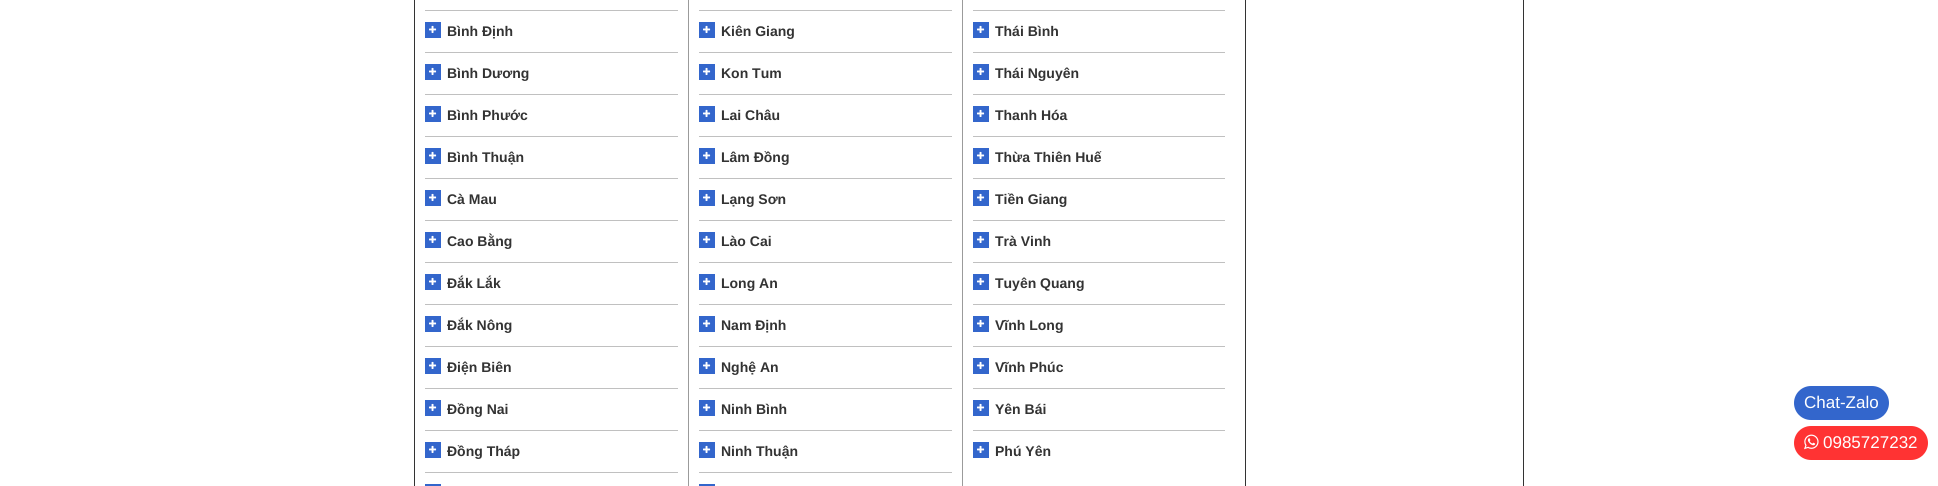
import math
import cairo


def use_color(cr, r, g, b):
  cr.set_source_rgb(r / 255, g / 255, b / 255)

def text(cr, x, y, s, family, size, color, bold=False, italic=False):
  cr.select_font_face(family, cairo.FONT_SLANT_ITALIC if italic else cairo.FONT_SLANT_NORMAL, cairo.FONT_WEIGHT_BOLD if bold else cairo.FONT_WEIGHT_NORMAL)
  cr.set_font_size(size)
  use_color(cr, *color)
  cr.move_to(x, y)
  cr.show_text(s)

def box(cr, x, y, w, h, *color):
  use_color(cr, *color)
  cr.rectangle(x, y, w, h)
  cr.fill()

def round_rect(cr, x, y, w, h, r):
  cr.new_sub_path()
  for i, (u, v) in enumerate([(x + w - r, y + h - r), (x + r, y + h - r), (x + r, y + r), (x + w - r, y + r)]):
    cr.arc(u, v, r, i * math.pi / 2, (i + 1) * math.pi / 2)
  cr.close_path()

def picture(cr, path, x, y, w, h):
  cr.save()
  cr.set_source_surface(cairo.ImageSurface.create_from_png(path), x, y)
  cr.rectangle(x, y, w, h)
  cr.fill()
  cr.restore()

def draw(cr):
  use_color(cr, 255, 255, 255)
  cr.paint()
  cr.rectangle(414.5, -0.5, 1109, 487)
  use_color(cr, 51, 51, 51)
  cr.set_line_width(1)
  cr.stroke()
  box(cr, 1245, 0, 1, 486, 51, 51, 51)
  box(cr, 688, 0, 1, 486, 155, 155, 155)
  box(cr, 425, 10, 253, 1, 192, 192, 192)
  box(cr, 425, 52, 253, 1, 192, 192, 192)
  box(cr, 425, 22, 16, 16, 51, 102, 204)
  picture(cr, "img_01.png", 429, 25, 8, 8)
  box(cr, 425, 94, 253, 1, 192, 192, 192)
  box(cr, 425, 64, 16, 16, 51, 102, 204)
  picture(cr, "img_01.png", 429, 67, 8, 8)
  box(cr, 425, 136, 253, 1, 192, 192, 192)
  box(cr, 425, 106, 16, 16, 51, 102, 204)
  picture(cr, "img_01.png", 429, 109, 8, 8)
  box(cr, 425, 178, 253, 1, 192, 192, 192)
  box(cr, 425, 148, 16, 16, 51, 102, 204)
  picture(cr, "img_01.png", 429, 151, 8, 8)
  box(cr, 425, 220, 253, 1, 192, 192, 192)
  box(cr, 425, 190, 16, 16, 51, 102, 204)
  picture(cr, "img_01.png", 429, 193, 8, 8)
  box(cr, 425, 262, 253, 1, 192, 192, 192)
  box(cr, 425, 232, 16, 16, 51, 102, 204)
  picture(cr, "img_01.png", 429, 235, 8, 8)
  box(cr, 425, 304, 253, 1, 192, 192, 192)
  box(cr, 425, 274, 16, 16, 51, 102, 204)
  picture(cr, "img_01.png", 429, 277, 8, 8)
  box(cr, 425, 346, 253, 1, 192, 192, 192)
  box(cr, 425, 316, 16, 16, 51, 102, 204)
  picture(cr, "img_01.png", 429, 319, 8, 8)
  box(cr, 425, 388, 253, 1, 192, 192, 192)
  box(cr, 425, 358, 16, 16, 51, 102, 204)
  picture(cr, "img_01.png", 429, 361, 8, 8)
  box(cr, 425, 430, 253, 1, 192, 192, 192)
  box(cr, 425, 400, 16, 16, 51, 102, 204)
  picture(cr, "img_01.png", 429, 403, 8, 8)
  box(cr, 425, 472, 253, 1, 192, 192, 192)
  box(cr, 425, 442, 16, 16, 51, 102, 204)
  picture(cr, "img_01.png", 429, 445, 8, 8)
  box(cr, 425, 484, 16, 2, 51, 102, 204)
  box(cr, 962, 0, 1, 486, 155, 155, 155)
  box(cr, 699, 10, 253, 1, 192, 192, 192)
  box(cr, 699, 52, 253, 1, 192, 192, 192)
  box(cr, 699, 22, 16, 16, 51, 102, 204)
  picture(cr, "img_01.png", 703, 25, 8, 8)
  box(cr, 699, 94, 253, 1, 192, 192, 192)
  box(cr, 699, 64, 16, 16, 51, 102, 204)
  picture(cr, "img_01.png", 703, 67, 8, 8)
  box(cr, 699, 136, 253, 1, 192, 192, 192)
  box(cr, 699, 106, 16, 16, 51, 102, 204)
  picture(cr, "img_01.png", 703, 109, 8, 8)
  box(cr, 699, 178, 253, 1, 192, 192, 192)
  box(cr, 699, 148, 16, 16, 51, 102, 204)
  picture(cr, "img_01.png", 703, 151, 8, 8)
  box(cr, 699, 220, 253, 1, 192, 192, 192)
  box(cr, 699, 190, 16, 16, 51, 102, 204)
  picture(cr, "img_01.png", 703, 193, 8, 8)
  box(cr, 699, 262, 253, 1, 192, 192, 192)
  box(cr, 699, 232, 16, 16, 51, 102, 204)
  picture(cr, "img_01.png", 703, 235, 8, 8)
  box(cr, 699, 304, 253, 1, 192, 192, 192)
  box(cr, 699, 274, 16, 16, 51, 102, 204)
  picture(cr, "img_01.png", 703, 277, 8, 8)
  box(cr, 699, 346, 253, 1, 192, 192, 192)
  box(cr, 699, 316, 16, 16, 51, 102, 204)
  picture(cr, "img_01.png", 703, 319, 8, 8)
  box(cr, 699, 388, 253, 1, 192, 192, 192)
  box(cr, 699, 358, 16, 16, 51, 102, 204)
  picture(cr, "img_01.png", 703, 361, 8, 8)
  box(cr, 699, 430, 253, 1, 192, 192, 192)
  box(cr, 699, 400, 16, 16, 51, 102, 204)
  picture(cr, "img_01.png", 703, 403, 8, 8)
  box(cr, 699, 472, 253, 1, 192, 192, 192)
  box(cr, 699, 442, 16, 16, 51, 102, 204)
  picture(cr, "img_01.png", 703, 445, 8, 8)
  box(cr, 699, 484, 16, 2, 51, 102, 204)
  box(cr, 973, 10, 252, 1, 192, 192, 192)
  box(cr, 973, 52, 252, 1, 192, 192, 192)
  box(cr, 973, 22, 16, 16, 51, 102, 204)
  picture(cr, "img_01.png", 977, 25, 8, 8)
  box(cr, 973, 94, 252, 1, 192, 192, 192)
  box(cr, 973, 64, 16, 16, 51, 102, 204)
  picture(cr, "img_01.png", 977, 67, 8, 8)
  box(cr, 973, 136, 252, 1, 192, 192, 192)
  box(cr, 973, 106, 16, 16, 51, 102, 204)
  picture(cr, "img_01.png", 977, 109, 8, 8)
  box(cr, 973, 178, 252, 1, 192, 192, 192)
  box(cr, 973, 148, 16, 16, 51, 102, 204)
  picture(cr, "img_01.png", 977, 151, 8, 8)
  box(cr, 973, 220, 252, 1, 192, 192, 192)
  box(cr, 973, 190, 16, 16, 51, 102, 204)
  picture(cr, "img_01.png", 977, 193, 8, 8)
  box(cr, 973, 262, 252, 1, 192, 192, 192)
  box(cr, 973, 232, 16, 16, 51, 102, 204)
  picture(cr, "img_01.png", 977, 235, 8, 8)
  box(cr, 973, 304, 252, 1, 192, 192, 192)
  box(cr, 973, 274, 16, 16, 51, 102, 204)
  picture(cr, "img_01.png", 977, 277, 8, 8)
  box(cr, 973, 346, 252, 1, 192, 192, 192)
  box(cr, 973, 316, 16, 16, 51, 102, 204)
  picture(cr, "img_01.png", 977, 319, 8, 8)
  box(cr, 973, 388, 252, 1, 192, 192, 192)
  box(cr, 973, 358, 16, 16, 51, 102, 204)
  picture(cr, "img_01.png", 977, 361, 8, 8)
  box(cr, 973, 430, 252, 1, 192, 192, 192)
  box(cr, 973, 400, 16, 16, 51, 102, 204)
  picture(cr, "img_01.png", 977, 403, 8, 8)
  box(cr, 973, 442, 16, 16, 51, 102, 204)
  picture(cr, "img_01.png", 977, 445, 8, 8)
  round_rect(cr, 1794, 386, 95, 34, 17)
  cr.fill()
  use_color(cr, 255, 51, 51)
  round_rect(cr, 1794, 426, 134, 34, 17)
  cr.fill()
  picture(cr, "img_02.png", 1804, 434, 15, 16)
  text(cr, 447, 36, "Bình Định", "Liberation Sans", 14, (51, 51, 51), bold=True)
  text(cr, 447, 78, "Bình Dương", "Liberation Sans", 14, (51, 51, 51), bold=True)
  text(cr, 447, 120, "Bình Phước", "Liberation Sans", 14, (51, 51, 51), bold=True)
  text(cr, 447, 162, "Bình Thuận", "Liberation Sans", 14, (51, 51, 51), bold=True)
  text(cr, 447, 204, "Cà Mau", "Liberation Sans", 14, (51, 51, 51), bold=True)
  text(cr, 447, 246, "Cao Bằng", "Liberation Sans", 14, (51, 51, 51), bold=True)
  text(cr, 447, 288, "Đắk Lắk", "Liberation Sans", 14, (51, 51, 51), bold=True)
  text(cr, 447, 330, "Đắk Nông", "Liberation Sans", 14, (51, 51, 51), bold=True)
  text(cr, 447, 372, "Điện Biên", "Liberation Sans", 14, (51, 51, 51), bold=True)
  text(cr, 447, 414, "Đồng Nai", "Liberation Sans", 14, (51, 51, 51), bold=True)
  text(cr, 447, 456, "Đồng Tháp", "Liberation Sans", 14, (51, 51, 51), bold=True)
  text(cr, 721, 36, "Kiên Giang", "Liberation Sans", 14, (51, 51, 51), bold=True)
  text(cr, 721, 78, "Kon Tum", "Liberation Sans", 14, (51, 51, 51), bold=True)
  text(cr, 721, 120, "Lai Châu", "Liberation Sans", 14, (51, 51, 51), bold=True)
  text(cr, 721, 162, "Lâm Đồng", "Liberation Sans", 14, (51, 51, 51), bold=True)
  text(cr, 721, 204, "Lạng Sơn", "Liberation Sans", 14, (51, 51, 51), bold=True)
  text(cr, 721, 246, "Lào Cai", "Liberation Sans", 14, (51, 51, 51), bold=True)
  text(cr, 721, 288, "Long An", "Liberation Sans", 14, (51, 51, 51), bold=True)
  text(cr, 721, 330, "Nam Định", "Liberation Sans", 14, (51, 51, 51), bold=True)
  text(cr, 721, 372, "Nghệ An", "Liberation Sans", 14, (51, 51, 51), bold=True)
  text(cr, 721, 414, "Ninh Bình", "Liberation Sans", 14, (51, 51, 51), bold=True)
  text(cr, 721, 456, "Ninh Thuận", "Liberation Sans", 14, (51, 51, 51), bold=True)
  text(cr, 995, 36, "Thái Bình", "Liberation Sans", 14, (51, 51, 51), bold=True)
  text(cr, 995, 78, "Thái Nguyên", "Liberation Sans", 14, (51, 51, 51), bold=True)
  text(cr, 995, 120, "Thanh Hóa", "Liberation Sans", 14, (51, 51, 51), bold=True)
  text(cr, 995, 162, "Thừa Thiên Huế", "Liberation Sans", 14, (51, 51, 51), bold=True)
  text(cr, 995, 204, "Tiền Giang", "Liberation Sans", 14, (51, 51, 51), bold=True)
  text(cr, 995, 246, "Trà Vinh", "Liberation Sans", 14, (51, 51, 51), bold=True)
  text(cr, 995, 288, "Tuyên Quang", "Liberation Sans", 14, (51, 51, 51), bold=True)
  text(cr, 995, 330, "Vĩnh Long", "Liberation Sans", 14, (51, 51, 51), bold=True)
  text(cr, 995, 372, "Vĩnh Phúc", "Liberation Sans", 14, (51, 51, 51), bold=True)
  text(cr, 995, 414, "Yên Bái", "Liberation Sans", 14, (51, 51, 51), bold=True)
  text(cr, 995, 456, "Phú Yên", "Liberation Sans", 14, (51, 51, 51), bold=True)
  text(cr, 1804, 408, "Chat-Zalo", "Liberation Sans", 17, (255, 255, 255))
  text(cr, 1823, 448, "0985727232", "Liberation Sans", 17, (255, 255, 255))


surface = cairo.ImageSurface(cairo.FORMAT_RGB24, 1938, 486)
cr = cairo.Context(surface)
options = cairo.FontOptions()
options.set_hint_metrics(cairo.HINT_METRICS_OFF)
options.set_hint_style(cairo.HINT_STYLE_NONE)
cr.set_font_options(options)
cr.set_miter_limit(4)
draw(cr)
surface.write_to_png("out.png")
